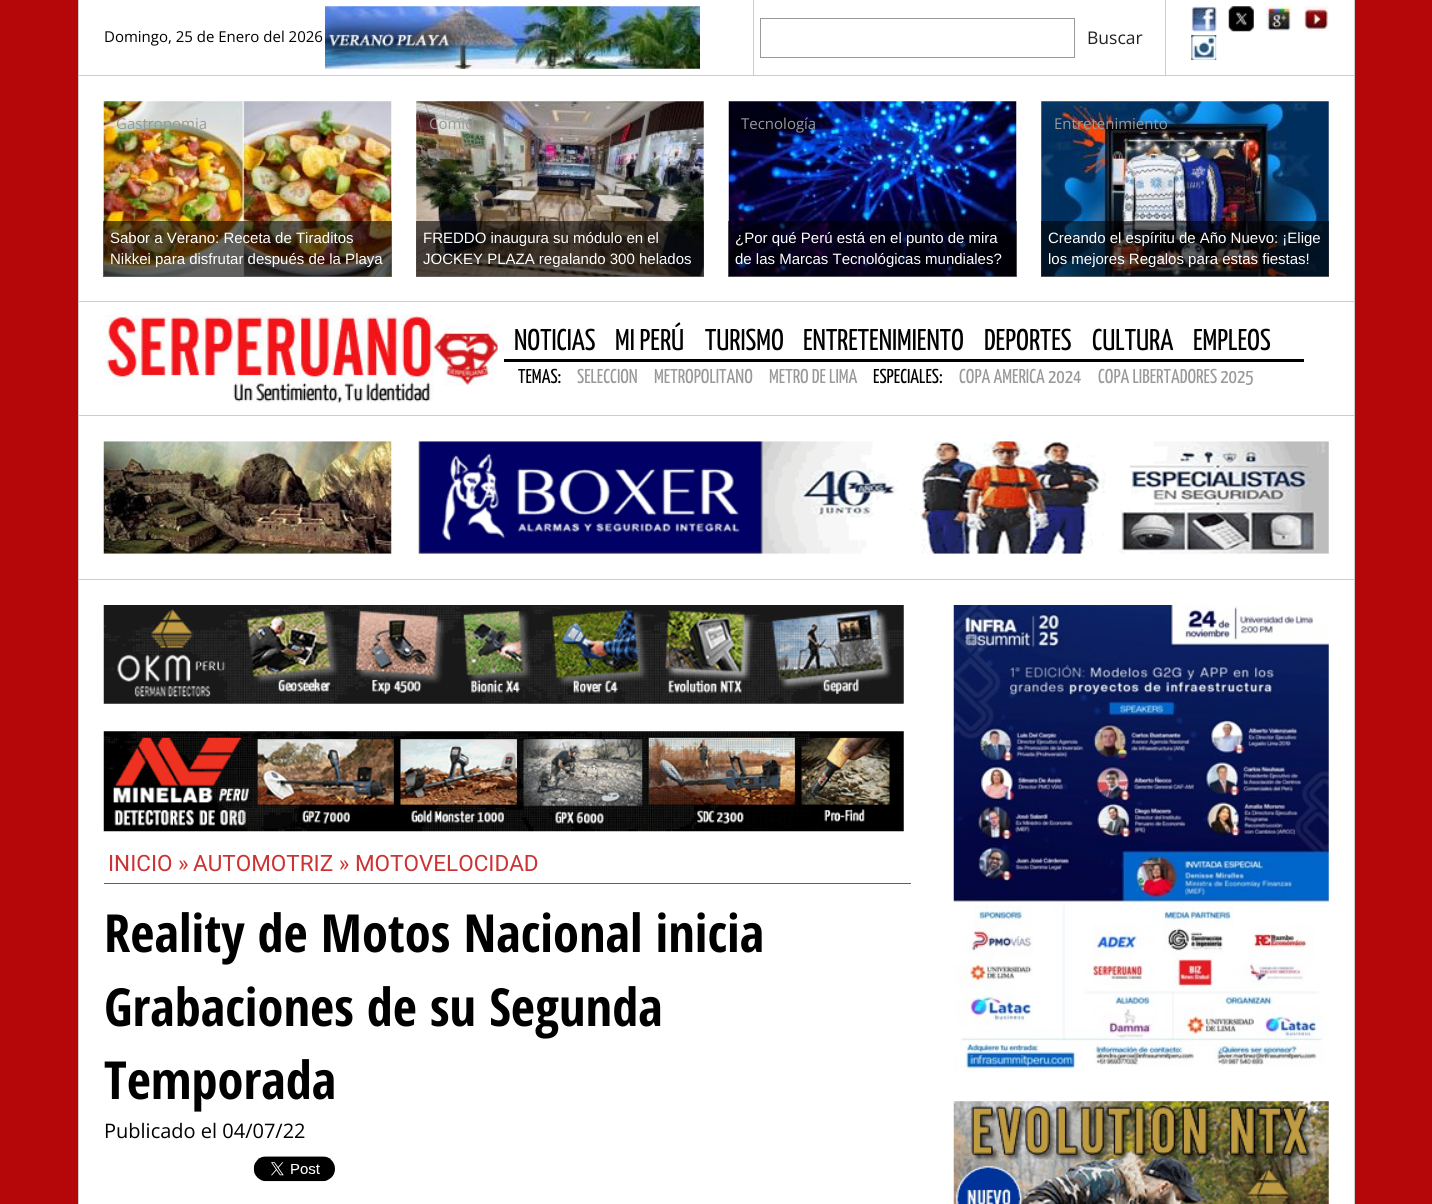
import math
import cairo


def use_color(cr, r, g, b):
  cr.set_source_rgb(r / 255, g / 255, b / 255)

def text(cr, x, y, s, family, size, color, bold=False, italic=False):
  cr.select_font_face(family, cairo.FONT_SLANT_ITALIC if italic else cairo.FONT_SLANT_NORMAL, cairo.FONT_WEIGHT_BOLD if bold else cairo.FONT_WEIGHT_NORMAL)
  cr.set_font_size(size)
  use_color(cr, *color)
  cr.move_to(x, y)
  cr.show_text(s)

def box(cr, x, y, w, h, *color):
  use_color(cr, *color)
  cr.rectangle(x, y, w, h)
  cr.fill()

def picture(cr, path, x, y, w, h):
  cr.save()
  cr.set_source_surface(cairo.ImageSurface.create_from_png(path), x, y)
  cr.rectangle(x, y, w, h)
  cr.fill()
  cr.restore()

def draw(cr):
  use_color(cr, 181, 6, 10)
  cr.paint()
  box(cr, 79, 0, 1275, 75, 255, 255, 255)
  box(cr, 1354, 0, 1, 1204, 204, 204, 204)
  box(cr, 78, 75, 1277, 1, 204, 204, 204)
  box(cr, 78, 0, 1, 1204, 204, 204, 204)
  box(cr, 753, 0, 1, 75, 204, 204, 204)
  picture(cr, "img_01.png", 325, 6, 375, 63)
  box(cr, 1165, 0, 1, 75, 204, 204, 204)
  cr.rectangle(760.5, 18.5, 314, 39)
  use_color(cr, 153, 153, 153)
  cr.set_line_width(1)
  cr.stroke()
  picture(cr, "img_02.png", 1191, 6, 26, 26)
  picture(cr, "img_03.png", 1228, 6, 26, 26)
  picture(cr, "img_04.png", 1266, 6, 26, 25)
  picture(cr, "img_05.png", 1303, 6, 26, 25)
  picture(cr, "img_06.png", 1191, 35, 26, 25)
  box(cr, 79, 76, 1275, 1128, 255, 255, 255)
  picture(cr, "img_07.png", 103, 101, 289, 176)
  cr.set_source_rgba(0, 0, 0, 0.6)
  cr.rectangle(103, 221, 289, 56)
  cr.fill()
  picture(cr, "img_08.png", 416, 101, 288, 176)
  cr.rectangle(416, 221, 288, 56)
  cr.fill()
  picture(cr, "img_09.png", 728, 101, 289, 176)
  cr.rectangle(728, 221, 289, 56)
  cr.fill()
  picture(cr, "img_10.png", 1041, 101, 288, 176)
  cr.rectangle(1041, 221, 288, 56)
  cr.fill()
  box(cr, 79, 301, 1275, 1, 204, 204, 204)
  box(cr, 79, 415, 1275, 1, 204, 204, 204)
  picture(cr, "img_11.png", 104, 315, 394, 88)
  box(cr, 504, 359, 800, 3, 0, 0, 0)
  picture(cr, "img_12.png", 103, 441, 289, 113)
  picture(cr, "img_13.png", 418, 441, 911, 113)
  box(cr, 79, 579, 1275, 1, 204, 204, 204)
  picture(cr, "img_14.png", 103, 605, 801, 99)
  picture(cr, "img_15.png", 103, 731, 801, 101)
  box(cr, 104, 883, 807, 1, 204, 51, 51)
  picture(cr, "img_16.png", 253, 1156, 82, 26)
  picture(cr, "img_17.png", 953, 605, 376, 468)
  picture(cr, "img_18.png", 953, 1101, 376, 103)
  text(cr, 104, 42, "Domingo, 25 de Enero del 2026", "Open Sans", 15, (0, 0, 0))
  text(cr, 1087, 44, "Buscar", "Open Sans", 17.5, (34, 34, 34))
  text(cr, 116, 129, "Gastronomia", "Open Sans", 15, (153, 153, 153))
  text(cr, 110, 243, "Sabor a Verano: Receta de Tiraditos", "Liberation Sans", 15, (255, 255, 255))
  text(cr, 110, 264, "Nikkei para disfrutar después de la Playa", "Liberation Sans", 15, (255, 255, 255))
  text(cr, 429, 129, "Comid", "Open Sans", 15, (153, 153, 153))
  text(cr, 423, 243, "FREDDO inaugura su módulo en el", "Liberation Sans", 15, (255, 255, 255))
  text(cr, 423, 264, "JOCKEY PLAZA regalando 300 helados", "Liberation Sans", 15, (255, 255, 255))
  text(cr, 741, 129, "Tecnología", "Open Sans", 15, (153, 153, 153))
  text(cr, 735, 243, "¿Por qué Perú está en el punto de mira", "Liberation Sans", 15, (255, 255, 255))
  text(cr, 735, 264, "de las Marcas Tecnológicas mundiales?", "Liberation Sans", 15, (255, 255, 255))
  text(cr, 1054, 129, "Entretenimiento", "Open Sans", 15, (153, 153, 153))
  text(cr, 1048, 243, "Creando el espíritu de Año Nuevo: ¡Elige", "Liberation Sans", 15, (255, 255, 255))
  text(cr, 1048, 264, "los mejores Regalos para estas fiestas!", "Liberation Sans", 15, (255, 255, 255))
  text(cr, 514, 350, "NOTICIAS", "Yanone Kaffeesatz", 30, (0, 0, 0))
  text(cr, 615, 350, "MI PERÚ", "Yanone Kaffeesatz", 30, (0, 0, 0))
  text(cr, 705, 350, "TURISMO", "Yanone Kaffeesatz", 30, (0, 0, 0))
  text(cr, 803, 350, "ENTRETENIMIENTO", "Yanone Kaffeesatz", 30, (0, 0, 0))
  text(cr, 984, 350, "DEPORTES", "Yanone Kaffeesatz", 30, (0, 0, 0))
  text(cr, 1092, 350, "CULTURA", "Yanone Kaffeesatz", 30, (0, 0, 0))
  text(cr, 1193, 350, "EMPLEOS", "Yanone Kaffeesatz", 30, (0, 0, 0))
  text(cr, 518, 383, "TEMAS:", "Yanone Kaffeesatz", 20, (0, 0, 0))
  text(cr, 577, 383, "SELECCION", "Yanone Kaffeesatz", 20, (153, 153, 153))
  text(cr, 654, 383, "METROPOLITANO", "Yanone Kaffeesatz", 20, (153, 153, 153))
  text(cr, 769, 383, "METRO DE LIMA", "Yanone Kaffeesatz", 20, (153, 153, 153))
  text(cr, 873, 383, "ESPECIALES:", "Yanone Kaffeesatz", 20, (0, 0, 0))
  text(cr, 959, 383, "COPA AMERICA 2024", "Yanone Kaffeesatz", 20, (153, 153, 153))
  text(cr, 1098, 383, "COPA LIBERTADORES 2025", "Yanone Kaffeesatz", 20, (153, 153, 153))
  text(cr, 108, 871, "INICIO »", "Roboto", 22.5, (204, 51, 51))
  text(cr, 193, 871, "AUTOMOTRIZ » MOTOVELOCIDAD", "Roboto", 22.5, (204, 51, 51))
  text(cr, 104, 952, "Reality de Motos Nacional inicia", "Open Sans Condensed", 52.5, (0, 0, 0), bold=True)
  text(cr, 104, 1026, "Grabaciones de su Segunda", "Open Sans Condensed", 52.5, (0, 0, 0), bold=True)
  text(cr, 104, 1099, "Temporada", "Open Sans Condensed", 52.5, (0, 0, 0), bold=True)
  text(cr, 104, 1138, "Publicado el 04/07/22", "Open Sans", 20, (0, 0, 0))


surface = cairo.ImageSurface(cairo.FORMAT_RGB24, 1432, 1204)
cr = cairo.Context(surface)
options = cairo.FontOptions()
options.set_hint_metrics(cairo.HINT_METRICS_OFF)
options.set_hint_style(cairo.HINT_STYLE_NONE)
cr.set_font_options(options)
cr.set_miter_limit(4)
draw(cr)
surface.write_to_png("out.png")
